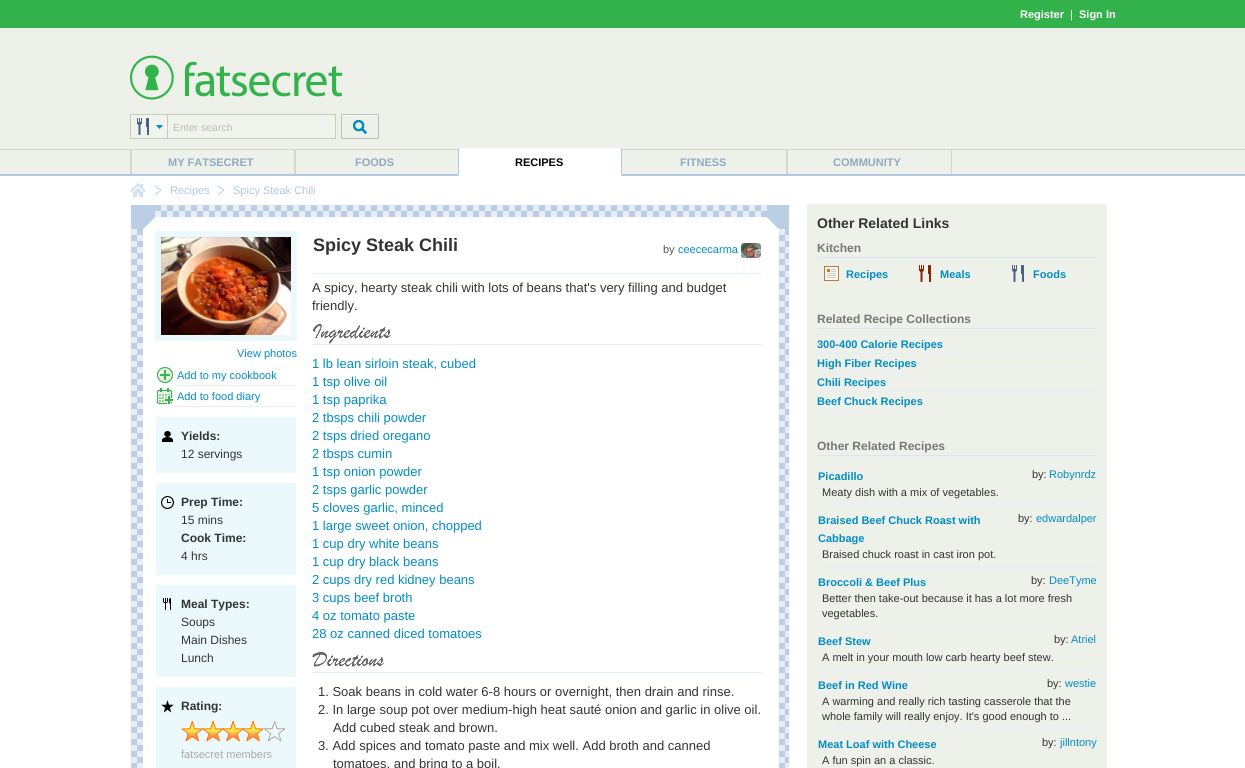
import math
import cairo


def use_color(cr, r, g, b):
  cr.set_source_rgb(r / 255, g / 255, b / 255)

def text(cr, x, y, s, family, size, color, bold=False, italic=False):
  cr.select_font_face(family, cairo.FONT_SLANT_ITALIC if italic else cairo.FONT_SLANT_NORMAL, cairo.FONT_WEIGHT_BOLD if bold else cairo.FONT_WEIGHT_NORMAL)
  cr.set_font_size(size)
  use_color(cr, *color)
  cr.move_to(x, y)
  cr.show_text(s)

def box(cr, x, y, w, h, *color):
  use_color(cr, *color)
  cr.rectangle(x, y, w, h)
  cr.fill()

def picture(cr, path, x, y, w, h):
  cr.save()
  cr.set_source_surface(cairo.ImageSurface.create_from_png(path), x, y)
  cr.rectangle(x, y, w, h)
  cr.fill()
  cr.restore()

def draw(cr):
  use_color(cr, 255, 255, 255)
  cr.paint()
  box(cr, 0, 0, 1245, 28, 51, 178, 75)
  box(cr, 0, 28, 1245, 121, 237, 241, 233)
  picture(cr, "img_01.png", 130, 55, 213, 45)
  picture(cr, "img_02.png", 130, 114, 37, 25)
  cr.rectangle(167.5, 114.5, 168, 24)
  use_color(cr, 194, 208, 184)
  cr.set_line_width(1)
  cr.stroke()
  box(cr, 168, 115, 167, 23, 241, 244, 237)
  picture(cr, "img_03.png", 341, 114, 38, 25)
  picture(cr, "img_04.png", 0, 149, 1245, 27)
  box(cr, 130, 150, 2, 24, 208, 218, 199)
  box(cr, 294, 150, 2, 24, 208, 218, 199)
  picture(cr, "img_05.png", 458, 148, 1, 28)
  box(cr, 459, 148, 162, 28, 255, 255, 255)
  picture(cr, "img_05.png", 621, 148, 1, 28)
  box(cr, 951, 150, 1, 24, 208, 218, 199)
  box(cr, 786, 150, 2, 24, 208, 218, 199)
  picture(cr, "img_06.png", 130, 183, 16, 14)
  picture(cr, "img_07.png", 154, 185, 8, 10)
  picture(cr, "img_07.png", 217, 185, 8, 10)
  picture(cr, "img_08.png", 131, 205, 658, 24)
  picture(cr, "img_09.png", 131, 229, 658, 539)
  box(cr, 155, 231, 142, 110, 235, 249, 252)
  picture(cr, "img_10.png", 161, 237, 130, 98)
  picture(cr, "img_11.png", 157, 367, 16, 16)
  box(cr, 175, 385, 121, 1, 230, 238, 246)
  picture(cr, "img_12.png", 157, 388, 16, 16)
  box(cr, 175, 406, 121, 1, 230, 238, 246)
  box(cr, 156, 417, 140, 56, 235, 249, 252)
  picture(cr, "img_13.png", 162, 431, 11, 11)
  box(cr, 156, 483, 140, 92, 235, 249, 252)
  picture(cr, "img_14.png", 161, 496, 13, 13)
  box(cr, 156, 585, 140, 92, 235, 249, 252)
  picture(cr, "img_15.png", 163, 598, 8, 12)
  box(cr, 156, 687, 140, 81, 235, 249, 252)
  picture(cr, "img_16.png", 161, 700, 13, 13)
  picture(cr, "img_17.png", 181, 720, 104, 22)
  box(cr, 312, 273, 450, 1, 230, 238, 246)
  picture(cr, "img_18.png", 741, 243, 20, 15)
  picture(cr, "img_19.png", 313, 323, 78, 21)
  box(cr, 312, 344, 450, 1, 230, 238, 246)
  picture(cr, "img_20.png", 312, 652, 72, 15)
  box(cr, 312, 672, 450, 1, 230, 238, 246)
  box(cr, 807, 204, 300, 564, 237, 241, 233)
  box(cr, 817, 257, 280, 1, 218, 230, 242)
  picture(cr, "img_21.png", 824, 266, 15, 15)
  picture(cr, "img_22.png", 919, 265, 12, 17)
  picture(cr, "img_23.png", 1012, 265, 12, 17)
  box(cr, 817, 328, 280, 1, 218, 230, 242)
  box(cr, 817, 353, 280, 1, 230, 238, 246)
  box(cr, 817, 372, 280, 1, 230, 238, 246)
  box(cr, 817, 391, 280, 1, 230, 238, 246)
  box(cr, 817, 410, 280, 1, 230, 238, 246)
  box(cr, 817, 455, 280, 1, 218, 230, 242)
  box(cr, 817, 505, 281, 1, 230, 238, 246)
  box(cr, 817, 567, 281, 1, 230, 238, 246)
  box(cr, 817, 626, 281, 1, 230, 238, 246)
  box(cr, 817, 670, 281, 1, 230, 238, 246)
  box(cr, 817, 729, 281, 1, 230, 238, 246)
  text(cr, 1020, 18, "Register", "Liberation Sans", 11, (255, 255, 255), bold=True)
  text(cr, 1070, 18, "|", "Liberation Sans", 11, (255, 255, 255))
  text(cr, 1079, 18, "Sign In", "Liberation Sans", 11, (255, 255, 255), bold=True)
  text(cr, 173, 131, "Enter search", "Liberation Sans", 10.5, (187, 187, 187))
  text(cr, 168, 166, "MY FATSECRET", "Liberation Sans", 11, (147, 169, 195), bold=True)
  text(cr, 355, 166, "FOODS", "Liberation Sans", 11, (147, 169, 195), bold=True)
  text(cr, 515, 166, "RECIPES", "Liberation Sans", 11, (0, 0, 0), bold=True)
  text(cr, 680, 166, "FITNESS", "Liberation Sans", 11, (147, 169, 195), bold=True)
  text(cr, 833, 166, "COMMUNITY", "Liberation Sans", 11, (147, 169, 195), bold=True)
  text(cr, 170, 194, "Recipes", "Liberation Sans", 11, (178, 200, 226))
  text(cr, 233, 194, "Spicy Steak Chili", "Liberation Sans", 11, (178, 200, 226))
  text(cr, 237, 357, "View photos", "Liberation Sans", 11, (2, 140, 196))
  text(cr, 177, 379, "Add to my cookbook", "Liberation Sans", 11, (2, 140, 196))
  text(cr, 177, 400, "Add to food diary", "Liberation Sans", 11, (2, 140, 196))
  text(cr, 181, 440, "Yields:", "Liberation Sans", 12, (51, 51, 51), bold=True)
  text(cr, 181, 458, "12 servings", "Liberation Sans", 12, (51, 51, 51))
  text(cr, 181, 506, "Prep Time:", "Liberation Sans", 12, (51, 51, 51), bold=True)
  text(cr, 181, 524, "15 mins", "Liberation Sans", 12, (51, 51, 51))
  text(cr, 181, 542, "Cook Time:", "Liberation Sans", 12, (51, 51, 51), bold=True)
  text(cr, 181, 560, "4 hrs", "Liberation Sans", 12, (51, 51, 51))
  text(cr, 181, 608, "Meal Types:", "Liberation Sans", 12, (51, 51, 51), bold=True)
  text(cr, 181, 626, "Soups", "Liberation Sans", 12, (51, 51, 51))
  text(cr, 181, 644, "Main Dishes", "Liberation Sans", 12, (51, 51, 51))
  text(cr, 181, 662, "Lunch", "Liberation Sans", 12, (51, 51, 51))
  text(cr, 181, 710, "Rating:", "Liberation Sans", 12, (51, 51, 51), bold=True)
  text(cr, 181, 758, "fatsecret members", "Liberation Sans", 11, (169, 169, 169))
  text(cr, 313, 251, "Spicy Steak Chili", "Liberation Sans", 18, (51, 51, 51), bold=True)
  text(cr, 663, 253, "by", "Liberation Sans", 11, (85, 85, 85))
  text(cr, 678, 253, "ceececarma", "Liberation Sans", 11, (2, 140, 196))
  text(cr, 312, 292, "A spicy, hearty steak chili with lots of beans that's very filling and budget", "Liberation Sans", 13, (51, 51, 51))
  text(cr, 312, 310, "friendly.", "Liberation Sans", 13, (51, 51, 51))
  text(cr, 312, 368, "1 lb lean sirloin steak, cubed", "Liberation Sans", 13, (2, 140, 196))
  text(cr, 312, 386, "1 tsp olive oil", "Liberation Sans", 13, (2, 140, 196))
  text(cr, 312, 404, "1 tsp paprika", "Liberation Sans", 13, (2, 140, 196))
  text(cr, 312, 422, "2 tbsps chili powder", "Liberation Sans", 13, (2, 140, 196))
  text(cr, 312, 440, "2 tsps dried oregano", "Liberation Sans", 13, (2, 140, 196))
  text(cr, 312, 458, "2 tbsps cumin", "Liberation Sans", 13, (2, 140, 196))
  text(cr, 312, 476, "1 tsp onion powder", "Liberation Sans", 13, (2, 140, 196))
  text(cr, 312, 494, "2 tsps garlic powder", "Liberation Sans", 13, (2, 140, 196))
  text(cr, 312, 512, "5 cloves garlic, minced", "Liberation Sans", 13, (2, 140, 196))
  text(cr, 312, 530, "1 large sweet onion, chopped", "Liberation Sans", 13, (2, 140, 196))
  text(cr, 312, 548, "1 cup dry white beans", "Liberation Sans", 13, (2, 140, 196))
  text(cr, 312, 566, "1 cup dry black beans", "Liberation Sans", 13, (2, 140, 196))
  text(cr, 312, 584, "2 cups dry red kidney beans", "Liberation Sans", 13, (2, 140, 196))
  text(cr, 312, 602, "3 cups beef broth", "Liberation Sans", 13, (2, 140, 196))
  text(cr, 312, 620, "4 oz tomato paste", "Liberation Sans", 13, (2, 140, 196))
  text(cr, 312, 638, "28 oz canned diced tomatoes", "Liberation Sans", 13, (2, 140, 196))
  text(cr, 318, 696, "1. Soak beans in cold water 6-8 hours or overnight, then drain and rinse.", "Liberation Sans", 13, (51, 51, 51))
  text(cr, 318, 714, "2. In large soup pot over medium-high heat sauté onion and garlic in olive oil.", "Liberation Sans", 13, (51, 51, 51))
  text(cr, 333, 732, "Add cubed steak and brown.", "Liberation Sans", 13, (51, 51, 51))
  text(cr, 318, 750, "3. Add spices and tomato paste and mix well. Add broth and canned", "Liberation Sans", 13, (51, 51, 51))
  text(cr, 333, 768, "tomatoes, and bring to a boil.", "Liberation Sans", 13, (51, 51, 51))
  text(cr, 817, 228, "Other Related Links", "Liberation Sans", 14, (51, 51, 51), bold=True)
  text(cr, 817, 252, "Kitchen", "Liberation Sans", 12, (119, 119, 119), bold=True)
  text(cr, 846, 278, "Recipes", "Liberation Sans", 11, (2, 140, 196), bold=True)
  text(cr, 940, 278, "Meals", "Liberation Sans", 11, (2, 140, 196), bold=True)
  text(cr, 1033, 278, "Foods", "Liberation Sans", 11, (2, 140, 196), bold=True)
  text(cr, 817, 323, "Related Recipe Collections", "Liberation Sans", 12, (119, 119, 119), bold=True)
  text(cr, 817, 348, "300-400 Calorie Recipes", "Liberation Sans", 11, (2, 140, 196), bold=True)
  text(cr, 817, 367, "High Fiber Recipes", "Liberation Sans", 11, (2, 140, 196), bold=True)
  text(cr, 817, 386, "Chili Recipes", "Liberation Sans", 11, (2, 140, 196), bold=True)
  text(cr, 817, 405, "Beef Chuck Recipes", "Liberation Sans", 11, (2, 140, 196), bold=True)
  text(cr, 817, 450, "Other Related Recipes", "Liberation Sans", 12, (119, 119, 119), bold=True)
  text(cr, 818, 480, "Picadillo", "Liberation Sans", 11, (2, 140, 196), bold=True)
  text(cr, 1032, 478, "by:", "Liberation Sans", 11, (51, 51, 51))
  text(cr, 1049, 478, "Robynrdz", "Liberation Sans", 11, (2, 140, 196))
  text(cr, 822, 496, "Meaty dish with a mix of vegetables.", "Liberation Sans", 11, (51, 51, 51))
  text(cr, 818, 524, "Braised Beef Chuck Roast with", "Liberation Sans", 11, (2, 140, 196), bold=True)
  text(cr, 818, 542, "Cabbage", "Liberation Sans", 11, (2, 140, 196), bold=True)
  text(cr, 1018, 522, "by:", "Liberation Sans", 11, (51, 51, 51))
  text(cr, 1036, 522, "edwardalper", "Liberation Sans", 11, (2, 140, 196))
  text(cr, 822, 558, "Braised chuck roast in cast iron pot.", "Liberation Sans", 11, (51, 51, 51))
  text(cr, 818, 586, "Broccoli & Beef Plus", "Liberation Sans", 11, (2, 140, 196), bold=True)
  text(cr, 1031, 584, "by:", "Liberation Sans", 11, (51, 51, 51))
  text(cr, 1049, 584, "DeeTyme", "Liberation Sans", 11, (2, 140, 196))
  text(cr, 822, 602, "Better then take-out because it has a lot more fresh", "Liberation Sans", 11, (51, 51, 51))
  text(cr, 822, 617, "vegetables.", "Liberation Sans", 11, (51, 51, 51))
  text(cr, 818, 645, "Beef Stew", "Liberation Sans", 11, (2, 140, 196), bold=True)
  text(cr, 1054, 643, "by:", "Liberation Sans", 11, (51, 51, 51))
  text(cr, 1071, 643, "Atriel", "Liberation Sans", 11, (2, 140, 196))
  text(cr, 822, 661, "A melt in your mouth low carb hearty beef stew.", "Liberation Sans", 11, (51, 51, 51))
  text(cr, 818, 689, "Beef in Red Wine", "Liberation Sans", 11, (2, 140, 196), bold=True)
  text(cr, 1047, 687, "by:", "Liberation Sans", 11, (51, 51, 51))
  text(cr, 1065, 687, "westie", "Liberation Sans", 11, (2, 140, 196))
  text(cr, 822, 705, "A warming and really rich tasting casserole that the", "Liberation Sans", 11, (51, 51, 51))
  text(cr, 822, 720, "whole family will really enjoy. It's good enough to ...", "Liberation Sans", 11, (51, 51, 51))
  text(cr, 818, 748, "Meat Loaf with Cheese", "Liberation Sans", 11, (2, 140, 196), bold=True)
  text(cr, 1042, 746, "by:", "Liberation Sans", 11, (51, 51, 51))
  text(cr, 1060, 746, "jillntony", "Liberation Sans", 11, (2, 140, 196))
  text(cr, 822, 764, "A fun spin an a classic.", "Liberation Sans", 11, (51, 51, 51))


surface = cairo.ImageSurface(cairo.FORMAT_RGB24, 1245, 768)
cr = cairo.Context(surface)
options = cairo.FontOptions()
options.set_hint_metrics(cairo.HINT_METRICS_OFF)
options.set_hint_style(cairo.HINT_STYLE_NONE)
cr.set_font_options(options)
cr.set_miter_limit(4)
draw(cr)
surface.write_to_png("out.png")
